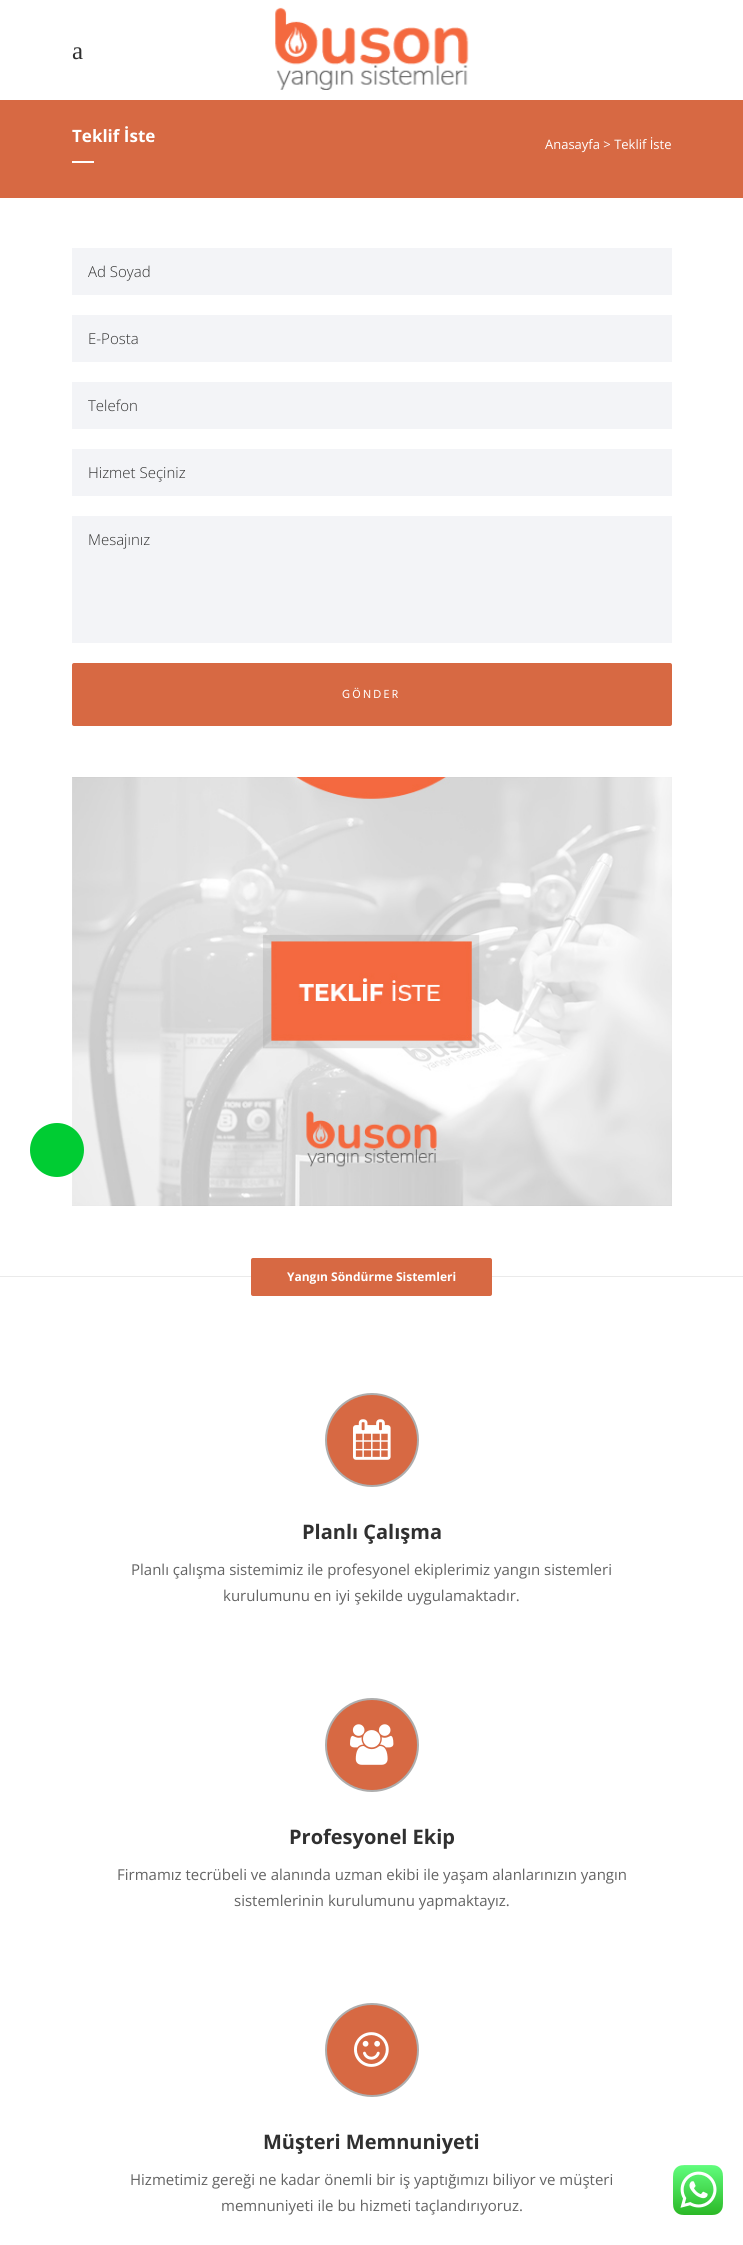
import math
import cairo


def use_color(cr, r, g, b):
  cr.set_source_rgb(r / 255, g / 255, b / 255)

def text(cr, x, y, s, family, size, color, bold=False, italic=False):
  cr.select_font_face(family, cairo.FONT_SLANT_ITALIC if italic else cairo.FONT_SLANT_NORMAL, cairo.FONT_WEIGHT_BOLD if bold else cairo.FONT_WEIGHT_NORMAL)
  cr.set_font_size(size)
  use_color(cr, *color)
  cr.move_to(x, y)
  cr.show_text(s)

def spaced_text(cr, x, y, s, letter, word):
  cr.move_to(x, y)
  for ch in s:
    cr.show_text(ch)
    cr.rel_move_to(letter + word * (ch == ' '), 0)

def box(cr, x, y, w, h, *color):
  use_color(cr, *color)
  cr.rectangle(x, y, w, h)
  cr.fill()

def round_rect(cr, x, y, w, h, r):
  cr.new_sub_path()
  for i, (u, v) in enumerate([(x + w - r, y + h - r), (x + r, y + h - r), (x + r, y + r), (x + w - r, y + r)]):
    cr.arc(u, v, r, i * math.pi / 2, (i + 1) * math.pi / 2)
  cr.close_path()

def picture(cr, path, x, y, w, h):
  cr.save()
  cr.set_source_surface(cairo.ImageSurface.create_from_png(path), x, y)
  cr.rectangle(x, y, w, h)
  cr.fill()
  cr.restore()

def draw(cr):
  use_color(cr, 255, 255, 255)
  cr.paint()
  picture(cr, "img_02.png", 72, 777, 600, 429)
  use_color(cr, 0, 204, 51)
  cr.arc(57, 1150, 27, 0, 2 * math.pi)
  cr.fill()
  picture(cr, "img_01.png", 275, 7, 194, 83)
  box(cr, 0, 100, 743, 98, 215, 105, 67)
  box(cr, 72, 161, 22, 2, 255, 255, 255)
  box(cr, 72, 248, 600, 47, 243, 244, 247)
  box(cr, 72, 315, 600, 47, 243, 244, 247)
  box(cr, 72, 382, 600, 47, 243, 244, 247)
  box(cr, 72, 449, 600, 47, 243, 244, 247)
  box(cr, 72, 516, 600, 127, 243, 244, 247)
  use_color(cr, 215, 105, 67)
  round_rect(cr, 72, 663, 600, 63, 2)
  cr.fill()
  box(cr, 0, 1276, 743, 1, 234, 234, 234)
  use_color(cr, 215, 105, 67)
  round_rect(cr, 251, 1258, 241, 38, 2)
  cr.fill()
  cr.arc(372, 1440, 46, 0, 2 * math.pi)
  cr.fill_preserve()
  use_color(cr, 173, 173, 173)
  cr.stroke()
  picture(cr, "img_03.png", 353, 1419, 38, 41)
  use_color(cr, 215, 105, 67)
  cr.arc(372, 1745, 46, 0, 2 * math.pi)
  cr.fill_preserve()
  use_color(cr, 173, 173, 173)
  cr.stroke()
  picture(cr, "img_04.png", 350, 1724, 44, 41)
  use_color(cr, 215, 105, 67)
  cr.arc(372, 2050, 46, 0, 2 * math.pi)
  cr.fill_preserve()
  use_color(cr, 173, 173, 173)
  cr.stroke()
  picture(cr, "img_05.png", 354, 2032, 35, 35)
  picture(cr, "img_06.png", 673, 2165, 50, 50)
  text(cr, 72, 59, "a", "Liberation Serif", 25, (48, 48, 48))
  text(cr, 72, 142, "Teklif İste", "Open Sans", 17, (255, 255, 255), bold=True)
  text(cr, 545, 149, "Anasayfa > Teklif İste", "Open Sans", 13, (255, 255, 255))
  text(cr, 88, 277, "Ad Soyad", "Open Sans Light", 15, (48, 48, 48))
  text(cr, 88, 344, "E-Posta", "Open Sans Light", 15, (48, 48, 48))
  text(cr, 88, 411, "Telefon", "Open Sans Light", 15, (48, 48, 48))
  text(cr, 88, 478, "Hizmet Seçiniz", "Open Sans Light", 15, (48, 48, 48))
  text(cr, 88, 545, "Mesajınız", "Open Sans Light", 15, (48, 48, 48))
  cr.select_font_face("Hind Siliguri")
  cr.set_font_size(12)
  use_color(cr, 255, 255, 255)
  spaced_text(cr, 342, 698, "GÖNDER", 2.25, 0)
  text(cr, 287, 1281, "Yangın Söndürme Sistemleri", "Open Sans", 12, (255, 255, 255), bold=True)
  text(cr, 302, 1539, "Planlı Çalışma", "Open Sans", 20, (48, 48, 48), bold=True)
  text(cr, 131, 1575, "Planlı çalışma sistemimiz ile profesyonel ekiplerimiz yangın sistemleri", "Open Sans", 15, (99, 99, 99))
  text(cr, 223, 1601, "kurulumunu en iyi şekilde uygulamaktadır.", "Open Sans", 15, (99, 99, 99))
  text(cr, 289, 1844, "Profesyonel Ekip", "Open Sans", 20, (48, 48, 48), bold=True)
  text(cr, 117, 1880, "Firmamız tecrübeli ve alanında uzman ekibi ile yaşam alanlarınızın yangın", "Open Sans", 15, (99, 99, 99))
  text(cr, 234, 1906, "sistemlerinin kurulumunu yapmaktayız.", "Open Sans", 15, (99, 99, 99))
  text(cr, 263, 2149, "Müşteri Memnuniyeti", "Open Sans", 20, (48, 48, 48), bold=True)
  text(cr, 130, 2185, "Hizmetimiz gereği ne kadar önemli bir iş yaptığımızı biliyor ve müşteri", "Open Sans", 15, (99, 99, 99))
  text(cr, 221, 2211, "memnuniyeti ile bu hizmeti taçlandırıyoruz.", "Open Sans", 15, (99, 99, 99))


surface = cairo.ImageSurface(cairo.FORMAT_RGB24, 743, 2245)
cr = cairo.Context(surface)
options = cairo.FontOptions()
options.set_hint_metrics(cairo.HINT_METRICS_OFF)
options.set_hint_style(cairo.HINT_STYLE_NONE)
cr.set_font_options(options)
cr.set_miter_limit(4)
draw(cr)
surface.write_to_png("out.png")
